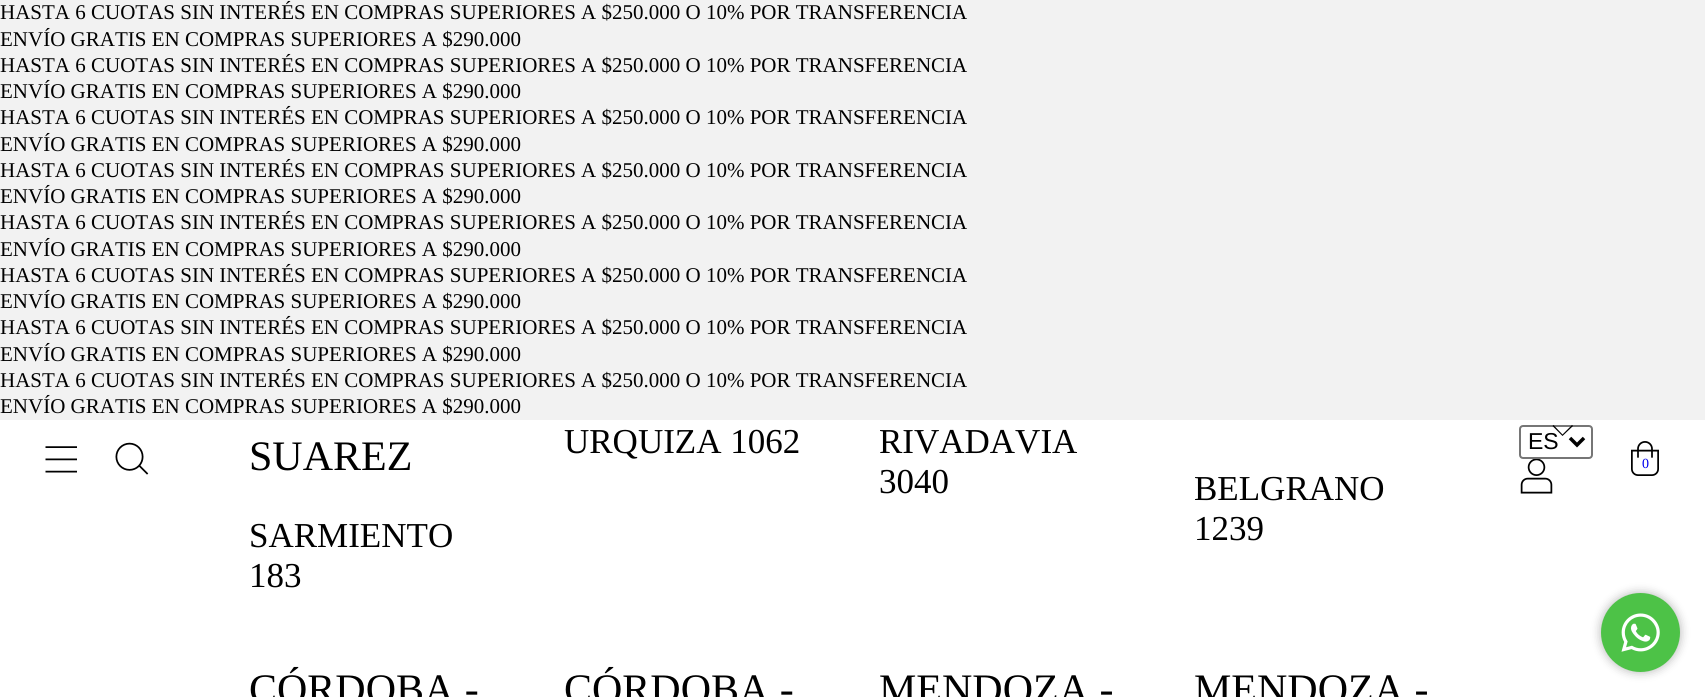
import math
import cairo


def use_color(cr, r, g, b):
  cr.set_source_rgb(r / 255, g / 255, b / 255)

def text(cr, x, y, s, family, size, color, bold=False, italic=False):
  cr.select_font_face(family, cairo.FONT_SLANT_ITALIC if italic else cairo.FONT_SLANT_NORMAL, cairo.FONT_WEIGHT_BOLD if bold else cairo.FONT_WEIGHT_NORMAL)
  cr.set_font_size(size)
  use_color(cr, *color)
  cr.move_to(x, y)
  cr.show_text(s)

def box(cr, x, y, w, h, *color):
  use_color(cr, *color)
  cr.rectangle(x, y, w, h)
  cr.fill()

def round_rect(cr, x, y, w, h, r):
  cr.new_sub_path()
  for i, (u, v) in enumerate([(x + w - r, y + h - r), (x + r, y + h - r), (x + r, y + r), (x + w - r, y + r)]):
    cr.arc(u, v, r, i * math.pi / 2, (i + 1) * math.pi / 2)
  cr.close_path()

def shadow(cr, x, y, w, h, r, blur, alpha):
  cr.push_group_with_content(cairo.CONTENT_ALPHA)
  cr.set_operator(cairo.OPERATOR_SOURCE)
  for i in range(15, -16, -2):
    e = blur * i / 6
    if min(w, h) + 2 * e > 0:
      cr.set_source_rgba(0, 0, 0, alpha * math.erfc((i - 1) / 8.5) / 2)
      round_rect(cr, x - e, y - e, w + 2 * e, h + 2 * e, max(0, min(r + e + blur * .6, min(w, h) / 2 + e)))
      cr.fill()
  cr.mask(cr.pop_group())

def picture(cr, path, x, y, w, h):
  cr.save()
  cr.set_source_surface(cairo.ImageSurface.create_from_png(path), x, y)
  cr.rectangle(x, y, w, h)
  cr.fill()
  cr.restore()

def draw(cr):
  use_color(cr, 255, 255, 255)
  cr.paint()
  box(cr, 0, 0, 1705, 420, 242, 242, 242)
  picture(cr, "img_01.png", 45, 446, 32, 27)
  picture(cr, "img_02.png", 115, 442, 34, 33)
  round_rect(cr, 1520, 426, 72, 32, 3)
  use_color(cr, 118, 118, 118)
  cr.stroke()
  use_color(cr, 0, 0, 0)
  cr.new_path()
  cr.move_to(1562.5, 434.5)
  cr.line_to(1572, 425)
  cr.line_to(1573, 426)
  cr.line_to(1562.5, 436)
  cr.line_to(1552.5, 426)
  cr.line_to(1553.5, 425)
  cr.close_path()
  cr.fill()
  cr.new_path()
  cr.move_to(1570, 438)
  cr.line_to(1577, 445)
  cr.line_to(1584, 438)
  cr.set_line_width(3.5)
  cr.stroke()
  picture(cr, "img_03.png", 1520, 459, 33, 35)
  picture(cr, "img_04.png", 1631, 441, 28, 35)
  use_color(cr, 0, 0, 0)
  shadow(cr, 1601, 593, 79, 79, 39.5, 5, 0.3)
  use_color(cr, 77, 194, 71)
  cr.arc(1640.5, 632.5, 39.5, 0, 2 * math.pi)
  cr.fill()
  picture(cr, "img_05.png", 1621, 613, 39, 39)
  text(cr, 0, 19, "HASTA 6 CUOTAS SIN INTERÉS EN COMPRAS SUPERIORES A $250.000 O 10% POR TRANSFERENCIA", "Liberation Serif", 21, (0, 0, 0))
  text(cr, 0, 46, "ENVÍO GRATIS EN COMPRAS SUPERIORES A $290.000", "Liberation Serif", 21, (0, 0, 0))
  text(cr, 0, 72, "HASTA 6 CUOTAS SIN INTERÉS EN COMPRAS SUPERIORES A $250.000 O 10% POR TRANSFERENCIA", "Liberation Serif", 21, (0, 0, 0))
  text(cr, 0, 98, "ENVÍO GRATIS EN COMPRAS SUPERIORES A $290.000", "Liberation Serif", 21, (0, 0, 0))
  text(cr, 0, 124, "HASTA 6 CUOTAS SIN INTERÉS EN COMPRAS SUPERIORES A $250.000 O 10% POR TRANSFERENCIA", "Liberation Serif", 21, (0, 0, 0))
  text(cr, 0, 151, "ENVÍO GRATIS EN COMPRAS SUPERIORES A $290.000", "Liberation Serif", 21, (0, 0, 0))
  text(cr, 0, 177, "HASTA 6 CUOTAS SIN INTERÉS EN COMPRAS SUPERIORES A $250.000 O 10% POR TRANSFERENCIA", "Liberation Serif", 21, (0, 0, 0))
  text(cr, 0, 203, "ENVÍO GRATIS EN COMPRAS SUPERIORES A $290.000", "Liberation Serif", 21, (0, 0, 0))
  text(cr, 0, 229, "HASTA 6 CUOTAS SIN INTERÉS EN COMPRAS SUPERIORES A $250.000 O 10% POR TRANSFERENCIA", "Liberation Serif", 21, (0, 0, 0))
  text(cr, 0, 256, "ENVÍO GRATIS EN COMPRAS SUPERIORES A $290.000", "Liberation Serif", 21, (0, 0, 0))
  text(cr, 0, 282, "HASTA 6 CUOTAS SIN INTERÉS EN COMPRAS SUPERIORES A $250.000 O 10% POR TRANSFERENCIA", "Liberation Serif", 21, (0, 0, 0))
  text(cr, 0, 308, "ENVÍO GRATIS EN COMPRAS SUPERIORES A $290.000", "Liberation Serif", 21, (0, 0, 0))
  text(cr, 0, 334, "HASTA 6 CUOTAS SIN INTERÉS EN COMPRAS SUPERIORES A $250.000 O 10% POR TRANSFERENCIA", "Liberation Serif", 21, (0, 0, 0))
  text(cr, 0, 361, "ENVÍO GRATIS EN COMPRAS SUPERIORES A $290.000", "Liberation Serif", 21, (0, 0, 0))
  text(cr, 0, 387, "HASTA 6 CUOTAS SIN INTERÉS EN COMPRAS SUPERIORES A $250.000 O 10% POR TRANSFERENCIA", "Liberation Serif", 21, (0, 0, 0))
  text(cr, 0, 413, "ENVÍO GRATIS EN COMPRAS SUPERIORES A $290.000", "Liberation Serif", 21, (0, 0, 0))
  text(cr, 1528, 449, "ES", "Liberation Sans", 23, (0, 0, 0))
  text(cr, 1642, 468, "0", "Liberation Serif", 14, (0, 0, 238))
  text(cr, 249, 470, "SUAREZ", "Liberation Serif", 42, (0, 0, 0))
  text(cr, 249, 547, "SARMIENTO", "Liberation Serif", 35, (0, 0, 0))
  text(cr, 249, 587, "183", "Liberation Serif", 35, (0, 0, 0))
  text(cr, 564, 453, "URQUIZA 1062", "Liberation Serif", 35, (0, 0, 0))
  text(cr, 879, 453, "RIVADAVIA", "Liberation Serif", 35, (0, 0, 0))
  text(cr, 879, 493, "3040", "Liberation Serif", 35, (0, 0, 0))
  text(cr, 1194, 500, "BELGRANO", "Liberation Serif", 35, (0, 0, 0))
  text(cr, 1194, 540, "1239", "Liberation Serif", 35, (0, 0, 0))
  text(cr, 249, 703, "CÓRDOBA -", "Liberation Serif", 42, (0, 0, 0))
  text(cr, 564, 703, "CÓRDOBA -", "Liberation Serif", 42, (0, 0, 0))
  text(cr, 879, 703, "MENDOZA -", "Liberation Serif", 42, (0, 0, 0))
  text(cr, 1194, 703, "MENDOZA -", "Liberation Serif", 42, (0, 0, 0))


surface = cairo.ImageSurface(cairo.FORMAT_RGB24, 1705, 697)
cr = cairo.Context(surface)
options = cairo.FontOptions()
options.set_hint_metrics(cairo.HINT_METRICS_OFF)
options.set_hint_style(cairo.HINT_STYLE_NONE)
cr.set_font_options(options)
cr.set_miter_limit(4)
draw(cr)
surface.write_to_png("out.png")
